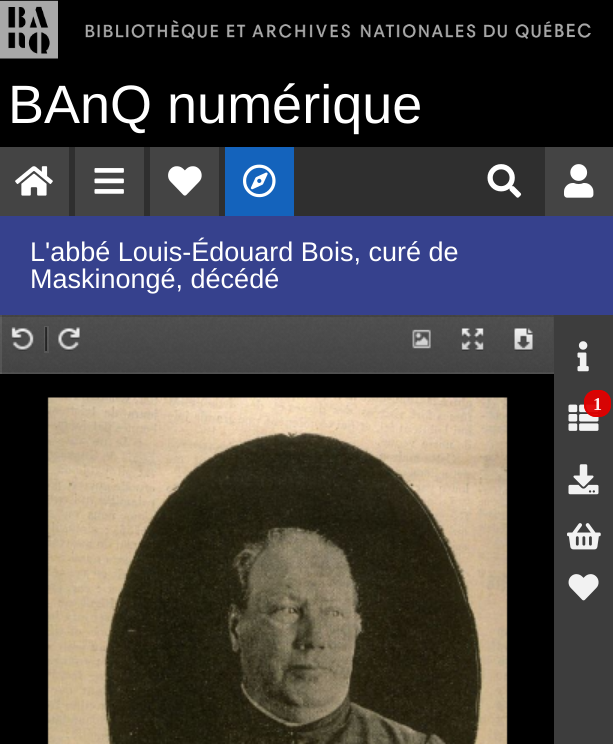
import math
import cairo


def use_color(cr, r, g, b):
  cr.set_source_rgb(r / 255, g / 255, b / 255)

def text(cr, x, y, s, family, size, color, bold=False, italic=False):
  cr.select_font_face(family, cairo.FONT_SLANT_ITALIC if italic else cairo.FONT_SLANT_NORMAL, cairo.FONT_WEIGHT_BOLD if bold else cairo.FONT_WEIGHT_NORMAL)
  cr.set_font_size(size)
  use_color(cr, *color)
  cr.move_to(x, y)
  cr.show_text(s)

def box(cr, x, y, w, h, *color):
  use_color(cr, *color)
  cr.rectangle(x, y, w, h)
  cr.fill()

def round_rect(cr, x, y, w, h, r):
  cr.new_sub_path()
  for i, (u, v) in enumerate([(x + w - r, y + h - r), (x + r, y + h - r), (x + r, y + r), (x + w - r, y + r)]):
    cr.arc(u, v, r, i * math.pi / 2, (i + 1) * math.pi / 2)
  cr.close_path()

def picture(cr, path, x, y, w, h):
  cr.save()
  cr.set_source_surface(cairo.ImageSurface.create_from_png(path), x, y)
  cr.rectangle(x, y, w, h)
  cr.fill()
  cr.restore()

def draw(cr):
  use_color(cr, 0, 0, 0)
  cr.paint()
  picture(cr, "img_01.png", 0, 0, 591, 59)
  box(cr, 69, 147, 476, 69, 47, 47, 47)
  box(cr, 0, 147, 69, 69, 68, 68, 68)
  picture(cr, "img_02.png", 15, 166, 38, 30)
  box(cr, 75, 147, 69, 69, 68, 68, 68)
  picture(cr, "img_03.png", 94, 168, 30, 26)
  box(cr, 150, 147, 69, 69, 68, 68, 68)
  picture(cr, "img_04.png", 168, 166, 34, 30)
  box(cr, 225, 147, 69, 69, 20, 99, 188)
  picture(cr, "img_05.png", 243, 164, 33, 34)
  picture(cr, "img_06.png", 487, 164, 35, 34)
  box(cr, 545, 147, 68, 69, 68, 68, 68)
  picture(cr, "img_07.png", 564, 164, 30, 34)
  box(cr, 0, 216, 613, 99, 54, 65, 141)
  box(cr, 554, 315, 59, 429, 61, 61, 61)
  box(cr, 0, 315, 554, 59, 71, 71, 71)
  picture(cr, "img_08.png", 0, 315, 554, 58)
  cr.set_source_rgba(1, 1, 1, 0.05)
  cr.rectangle(0, 372, 554, 2)
  cr.fill()
  cr.set_source_rgba(0, 0, 0, 0.15)
  cr.rectangle(0, 315, 554, 2)
  cr.fill()
  cr.set_source_rgba(1, 1, 1, 0.08)
  cr.rectangle(0, 315, 2, 59)
  cr.fill()
  picture(cr, "img_09.png", 11, 327, 23, 24)
  cr.rectangle(45, 327, 3, 25)
  cr.stroke()
  cr.set_source_rgba(0, 0, 0, 0.5)
  cr.rectangle(45, 327, 2, 24)
  cr.fill()
  picture(cr, "img_10.png", 58, 327, 22, 24)
  picture(cr, "img_11.png", 412, 329, 19, 20)
  picture(cr, "img_12.png", 461, 328, 23, 23)
  picture(cr, "img_13.png", 514, 328, 19, 23)
  picture(cr, "img_14.png", 47, 397, 461, 347)
  picture(cr, "img_15.png", 577, 341, 12, 31)
  picture(cr, "img_16.png", 568, 404, 31, 27)
  cr.set_source_rgba(0.878, 0, 0, 0.94)
  round_rect(cr, 584, 390, 27, 27, 12)
  cr.fill()
  round_rect(cr, 585, 391, 25, 25, 11)
  cr.stroke()
  picture(cr, "img_17.png", 568, 464, 31, 31)
  picture(cr, "img_18.png", 567, 523, 34, 27)
  picture(cr, "img_19.png", 568, 574, 31, 27)
  text(cr, 8, 123, "BAnQ numérique", "Liberation Sans", 54, (255, 255, 255))
  text(cr, 30, 261, "L'abbé Louis-Édouard Bois, curé de", "Liberation Sans", 27, (255, 255, 255))
  text(cr, 30, 288, "Maskinongé, décédé", "Liberation Sans", 27, (255, 255, 255))
  text(cr, 593, 410, "1", "Liberation Serif", 18, (253, 240, 240), bold=True)


surface = cairo.ImageSurface(cairo.FORMAT_RGB24, 613, 744)
cr = cairo.Context(surface)
options = cairo.FontOptions()
options.set_hint_metrics(cairo.HINT_METRICS_OFF)
options.set_hint_style(cairo.HINT_STYLE_NONE)
cr.set_font_options(options)
cr.set_miter_limit(4)
draw(cr)
surface.write_to_png("out.png")
